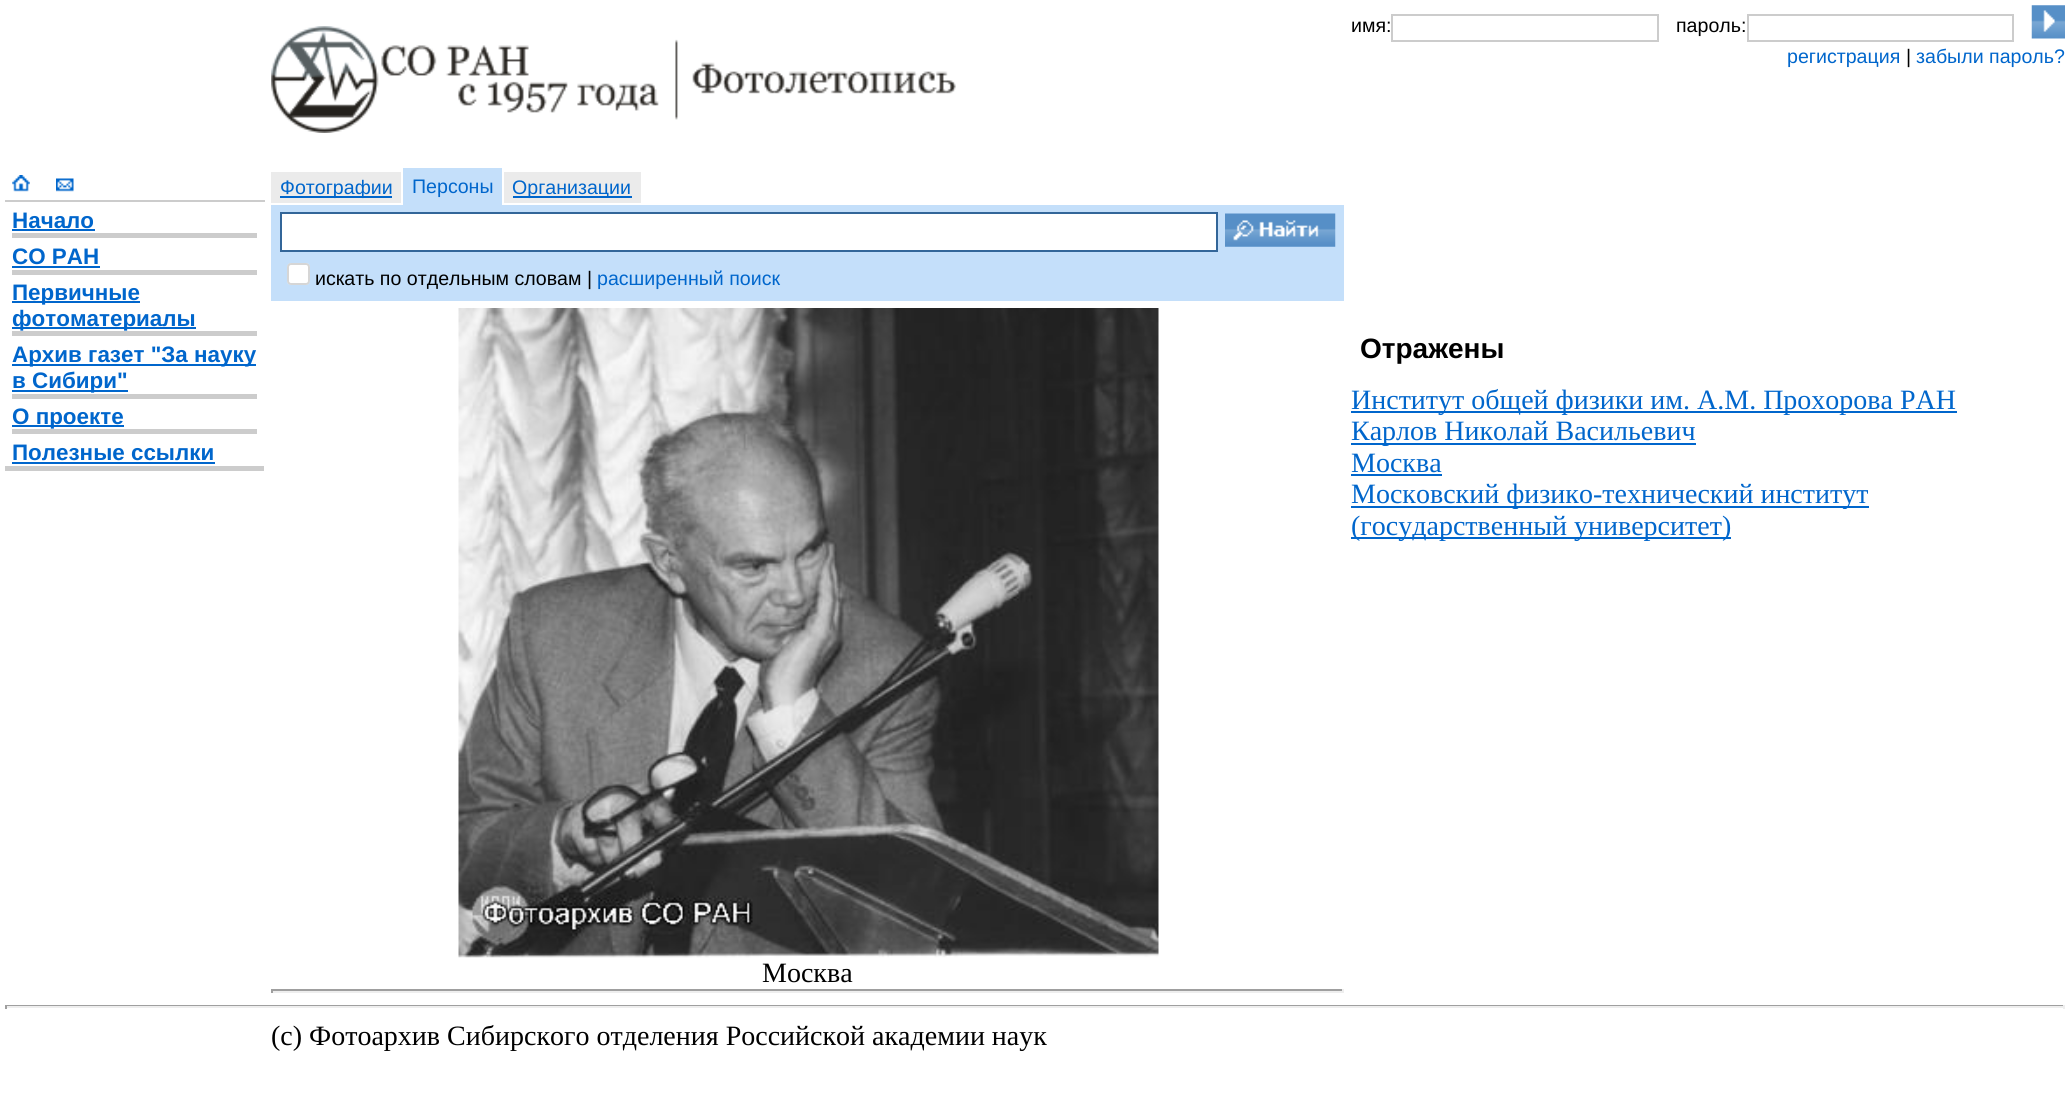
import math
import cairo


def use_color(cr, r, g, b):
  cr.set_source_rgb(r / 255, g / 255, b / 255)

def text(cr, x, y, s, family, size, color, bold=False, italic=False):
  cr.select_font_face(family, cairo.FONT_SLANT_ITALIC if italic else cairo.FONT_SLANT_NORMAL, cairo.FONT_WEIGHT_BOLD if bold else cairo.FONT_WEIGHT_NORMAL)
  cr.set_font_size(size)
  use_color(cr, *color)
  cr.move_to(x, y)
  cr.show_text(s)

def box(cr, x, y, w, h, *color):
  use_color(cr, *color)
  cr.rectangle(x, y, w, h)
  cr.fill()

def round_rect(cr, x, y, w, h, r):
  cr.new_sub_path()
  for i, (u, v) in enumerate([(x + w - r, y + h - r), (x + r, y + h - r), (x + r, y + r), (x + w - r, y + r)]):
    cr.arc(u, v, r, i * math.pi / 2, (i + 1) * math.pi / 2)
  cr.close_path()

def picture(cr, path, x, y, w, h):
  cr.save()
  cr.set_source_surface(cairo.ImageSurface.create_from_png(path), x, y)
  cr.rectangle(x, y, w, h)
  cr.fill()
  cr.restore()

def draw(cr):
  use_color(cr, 255, 255, 255)
  cr.paint()
  picture(cr, "img_01.png", 271, 26, 685, 107)
  cr.rectangle(1392, 15, 266, 26)
  use_color(cr, 204, 204, 204)
  cr.stroke()
  cr.rectangle(1748, 15, 265, 26)
  cr.stroke()
  picture(cr, "img_02.png", 2031, 5, 34, 34)
  picture(cr, "img_03.png", 12, 175, 18, 17)
  picture(cr, "img_04.png", 56, 178, 18, 14)
  box(cr, 5, 200, 260, 2, 204, 204, 204)
  box(cr, 12, 229, 83, 2, 0, 102, 204)
  box(cr, 12, 233, 245, 5, 204, 204, 204)
  box(cr, 12, 266, 88, 2, 0, 102, 204)
  box(cr, 12, 270, 245, 5, 204, 204, 204)
  box(cr, 12, 301, 128, 2, 0, 102, 204)
  box(cr, 12, 327, 184, 2, 0, 102, 204)
  box(cr, 12, 331, 245, 5, 204, 204, 204)
  box(cr, 12, 364, 244, 2, 0, 102, 204)
  box(cr, 12, 390, 116, 2, 0, 102, 204)
  box(cr, 12, 394, 245, 5, 204, 204, 204)
  box(cr, 12, 425, 112, 2, 0, 102, 204)
  box(cr, 12, 429, 245, 5, 204, 204, 204)
  box(cr, 12, 462, 203, 2, 0, 102, 204)
  box(cr, 5, 466, 259, 5, 204, 204, 204)
  box(cr, 271, 172, 130, 31, 235, 235, 235)
  box(cr, 280, 196, 112, 2, 0, 102, 204)
  box(cr, 403, 168, 99, 37, 196, 223, 250)
  box(cr, 504, 172, 137, 31, 235, 235, 235)
  box(cr, 513, 196, 119, 2, 0, 102, 204)
  box(cr, 271, 205, 1073, 96, 196, 223, 250)
  use_color(cr, 255, 255, 255)
  cr.rectangle(281, 213, 936, 38)
  cr.fill_preserve()
  use_color(cr, 51, 102, 153)
  cr.stroke()
  picture(cr, "img_05.png", 1225, 213, 111, 34)
  use_color(cr, 255, 255, 255)
  round_rect(cr, 287, 263, 23, 22, 4)
  cr.fill()
  round_rect(cr, 288, 264, 21, 20, 3)
  cr.set_source_rgba(0.463, 0.463, 0.463, 0.3)
  cr.stroke()
  box(cr, 1351, 411, 606, 2, 0, 102, 204)
  box(cr, 1351, 443, 345, 2, 0, 102, 204)
  box(cr, 1351, 474, 91, 2, 0, 102, 204)
  box(cr, 1351, 506, 518, 2, 0, 102, 204)
  box(cr, 1351, 537, 380, 2, 0, 102, 204)
  picture(cr, "img_06.png", 458, 308, 701, 650)
  box(cr, 271, 989, 1073, 2, 159, 159, 159)
  box(cr, 1342, 989, 2, 4, 238, 238, 238)
  box(cr, 271, 991, 1073, 2, 238, 238, 238)
  box(cr, 271, 989, 2, 4, 159, 159, 159)
  box(cr, 5, 1005, 2060, 1, 159, 159, 159)
  box(cr, 2063, 1005, 2, 4, 238, 238, 238)
  box(cr, 5, 1006, 2060, 2, 238, 238, 238)
  box(cr, 5, 1005, 2, 4, 159, 159, 159)
  text(cr, 1351, 32, "имя:", "Liberation Sans", 19.6, (0, 0, 0))
  text(cr, 1676, 32, "пароль:", "Liberation Sans", 19.6, (0, 0, 0))
  text(cr, 1787, 63, "регистрация", "Liberation Sans", 19.6, (0, 102, 204))
  text(cr, 1906, 63, "|", "Liberation Sans", 19.6, (0, 0, 0))
  text(cr, 1916, 63, "забыли пароль?", "Liberation Sans", 19.6, (0, 102, 204))
  text(cr, 12, 228, "Начало", "Liberation Sans", 22.4, (0, 102, 204), bold=True)
  text(cr, 12, 264, "СО РАН", "Liberation Sans", 22.4, (0, 102, 204), bold=True)
  text(cr, 12, 300, "Первичные", "Liberation Sans", 22.4, (0, 102, 204), bold=True)
  text(cr, 12, 326, "фотоматериалы", "Liberation Sans", 22.4, (0, 102, 204), bold=True)
  text(cr, 12, 362, "Архив газет \"За науку", "Liberation Sans", 22.4, (0, 102, 204), bold=True)
  text(cr, 12, 388, "в Сибири\"", "Liberation Sans", 22.4, (0, 102, 204), bold=True)
  text(cr, 12, 424, "О проекте", "Liberation Sans", 22.4, (0, 102, 204), bold=True)
  text(cr, 12, 460, "Полезные ссылки", "Liberation Sans", 22.4, (0, 102, 204), bold=True)
  text(cr, 280, 194, "Фотографии", "Liberation Sans", 19.6, (0, 102, 204))
  text(cr, 412, 193, "Персоны", "Liberation Sans", 19.6, (0, 102, 204))
  text(cr, 512, 194, "Организации", "Liberation Sans", 19.6, (0, 102, 204))
  text(cr, 315, 285, "искать по отдельным словам |", "Liberation Sans", 19.6, (0, 0, 0))
  text(cr, 597, 285, "расширенный поиск", "Liberation Sans", 19.6, (0, 102, 204))
  text(cr, 1360, 358, "Отражены", "Liberation Sans", 28, (0, 0, 0), bold=True)
  text(cr, 1351, 409, "Институт общей физики им. А.М. Прохорова РАН", "Liberation Serif", 28, (0, 102, 204))
  text(cr, 1351, 440, "Карлов Николай Васильевич", "Liberation Serif", 28, (0, 102, 204))
  text(cr, 1351, 472, "Москва", "Liberation Serif", 28, (0, 102, 204))
  text(cr, 1351, 503, "Московский физико-технический институт", "Liberation Serif", 28, (0, 102, 204))
  text(cr, 1351, 535, "(государственный университет)", "Liberation Serif", 28, (0, 102, 204))
  text(cr, 762, 982, "Москва", "Liberation Serif", 28, (0, 0, 0))
  text(cr, 271, 1045, "(c) Фотоархив Сибирского отделения Российской академии наук", "Liberation Serif", 28, (0, 0, 0))


surface = cairo.ImageSurface(cairo.FORMAT_RGB24, 2069, 1111)
cr = cairo.Context(surface)
options = cairo.FontOptions()
options.set_hint_metrics(cairo.HINT_METRICS_OFF)
options.set_hint_style(cairo.HINT_STYLE_NONE)
cr.set_font_options(options)
cr.set_miter_limit(4)
draw(cr)
surface.write_to_png("out.png")
